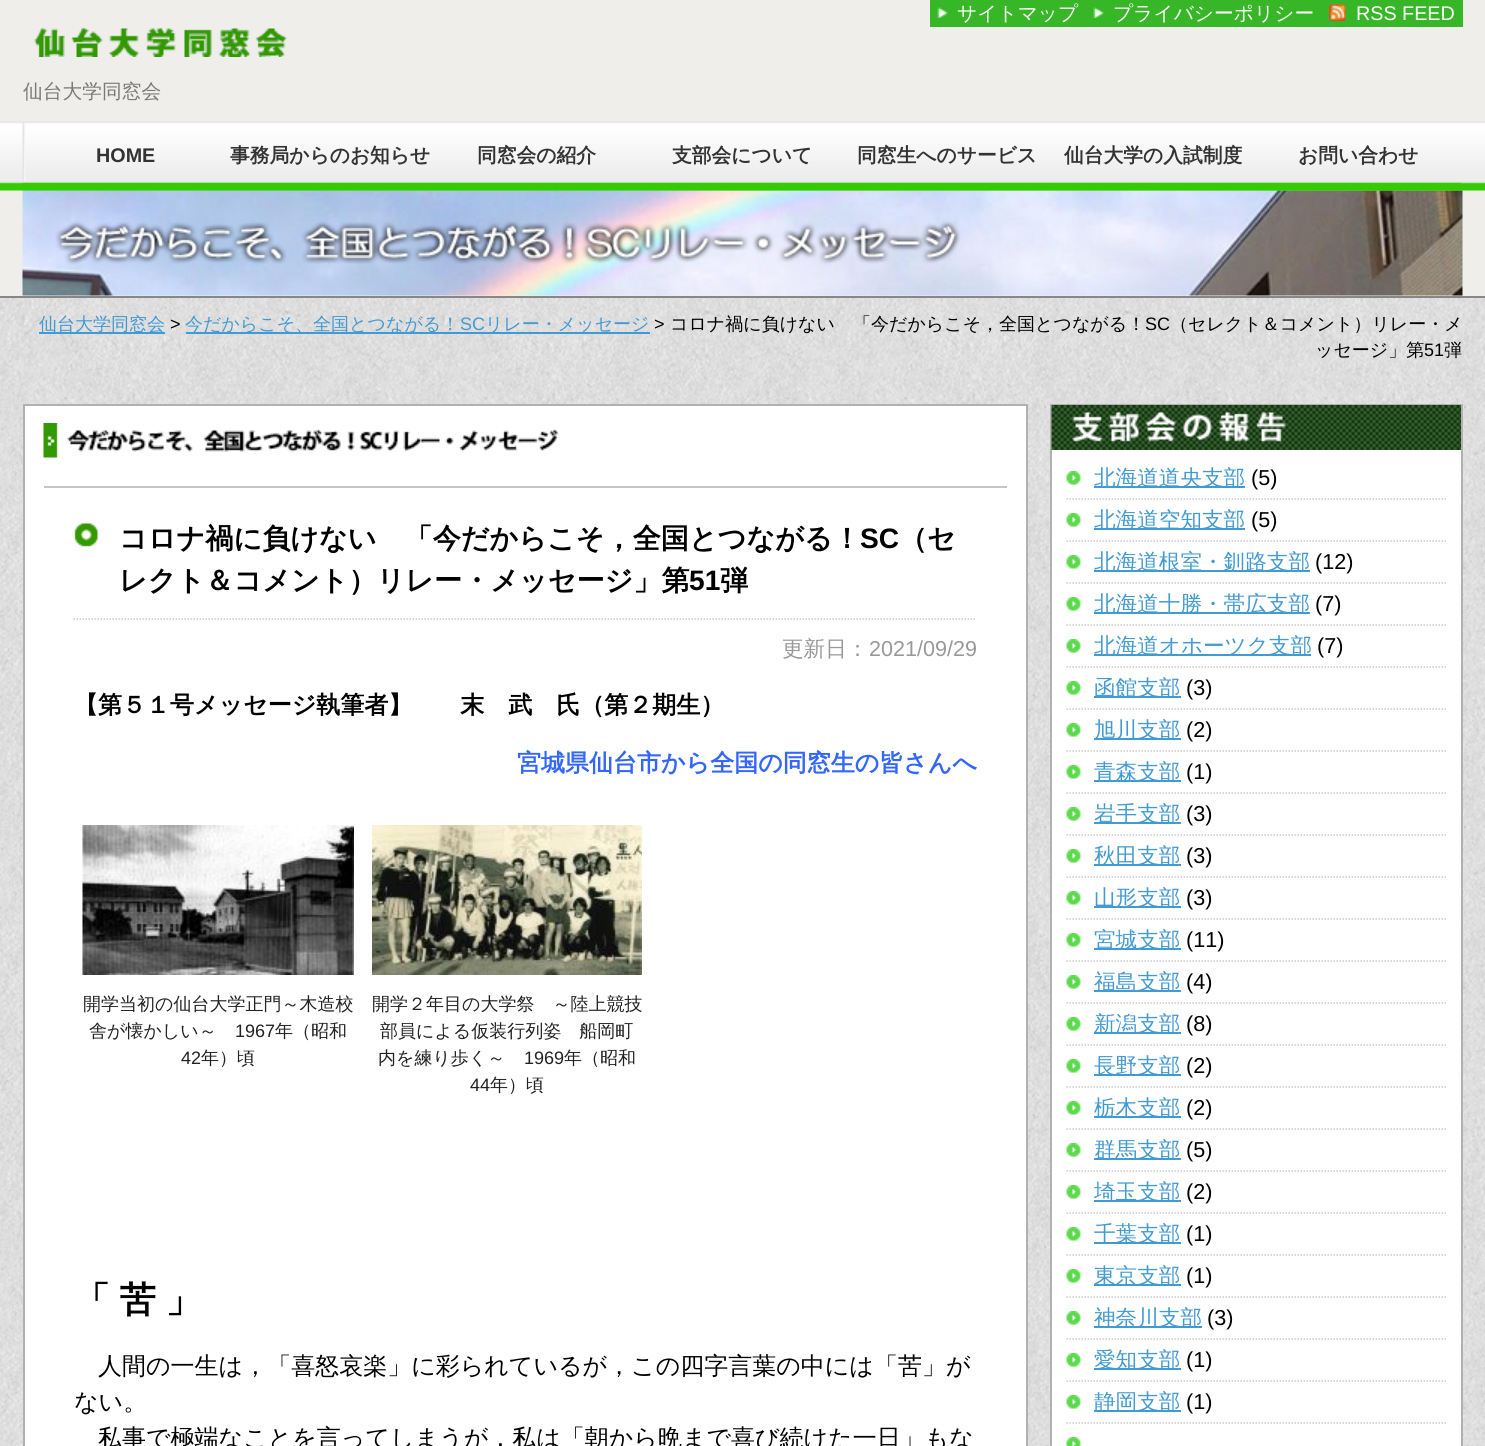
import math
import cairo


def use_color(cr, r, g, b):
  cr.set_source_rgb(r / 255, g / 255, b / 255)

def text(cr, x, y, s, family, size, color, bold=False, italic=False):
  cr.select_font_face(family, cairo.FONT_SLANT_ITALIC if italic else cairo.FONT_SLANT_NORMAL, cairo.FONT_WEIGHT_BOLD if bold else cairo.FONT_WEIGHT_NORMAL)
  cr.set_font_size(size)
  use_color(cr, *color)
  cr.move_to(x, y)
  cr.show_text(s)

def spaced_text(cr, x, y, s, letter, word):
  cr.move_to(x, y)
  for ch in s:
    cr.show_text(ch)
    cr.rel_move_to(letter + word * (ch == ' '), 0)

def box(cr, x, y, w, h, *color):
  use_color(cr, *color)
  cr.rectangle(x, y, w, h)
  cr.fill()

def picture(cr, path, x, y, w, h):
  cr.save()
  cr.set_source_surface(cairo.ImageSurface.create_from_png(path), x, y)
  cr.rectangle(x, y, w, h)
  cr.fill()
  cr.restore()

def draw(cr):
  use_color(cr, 255, 255, 255)
  cr.paint()
  picture(cr, "img_01.png", 0, 298, 1485, 1148)
  box(cr, 0, 0, 1485, 296, 239, 238, 235)
  picture(cr, "img_02.png", 0, 121, 1485, 70)
  box(cr, 0, 296, 1485, 2, 135, 135, 135)
  box(cr, 930, 0, 533, 27, 55, 183, 39)
  picture(cr, "img_03.png", 937, 7, 11, 11)
  picture(cr, "img_03.png", 1093, 7, 11, 11)
  picture(cr, "img_04.png", 1329, 4, 17, 17)
  picture(cr, "img_05.png", 34, 27, 253, 30)
  picture(cr, "img_06.png", 22, 122, 4, 60)
  picture(cr, "img_14.png", 22, 190, 1441, 106)
  picture(cr, "img_07.png", 22, 182, 206, 9)
  picture(cr, "img_08.png", 228, 182, 206, 9)
  picture(cr, "img_09.png", 433, 182, 206, 9)
  picture(cr, "img_10.png", 639, 182, 206, 9)
  picture(cr, "img_11.png", 844, 182, 206, 9)
  picture(cr, "img_12.png", 1050, 182, 206, 9)
  picture(cr, "img_13.png", 1255, 182, 206, 9)
  box(cr, 39, 332, 126, 2, 66, 154, 210)
  box(cr, 186, 332, 464, 2, 66, 154, 210)
  use_color(cr, 255, 255, 255)
  cr.rectangle(24, 405, 1003, 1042)
  cr.fill_preserve()
  use_color(cr, 177, 177, 177)
  cr.stroke()
  box(cr, 44, 486, 963, 2, 197, 197, 197)
  picture(cr, "img_15.png", 43, 423, 516, 35)
  picture(cr, "img_16.png", 74, 523, 24, 24)
  cr.new_path()
  cr.move_to(73.5, 619)
  cr.line_to(976.5, 619)
  use_color(cr, 204, 204, 204)
  cr.set_line_width(1.5)
  cr.set_dash([1.5, 1.5])
  cr.stroke()
  picture(cr, "img_17.png", 82, 825, 272, 150)
  picture(cr, "img_18.png", 372, 825, 270, 150)
  box(cr, 1052, 450, 409, 996, 255, 255, 255)
  cr.rectangle(1051, 405, 411, 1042)
  use_color(cr, 177, 177, 177)
  cr.set_line_width(2)
  cr.set_dash([])
  cr.stroke()
  picture(cr, "img_19.png", 1051, 405, 410, 45)
  picture(cr, "img_20.png", 1066, 471, 16, 14)
  cr.new_path()
  cr.move_to(1066.5, 499)
  cr.line_to(1446, 499)
  use_color(cr, 204, 204, 204)
  cr.set_line_width(1.5)
  cr.set_dash([1.5, 1.5])
  cr.stroke()
  box(cr, 1094, 486, 151, 2, 66, 154, 210)
  picture(cr, "img_20.png", 1066, 513, 16, 14)
  cr.new_path()
  cr.move_to(1066.5, 541)
  cr.line_to(1446, 541)
  use_color(cr, 204, 204, 204)
  cr.stroke()
  box(cr, 1094, 528, 151, 2, 66, 154, 210)
  picture(cr, "img_20.png", 1066, 555, 16, 14)
  cr.new_path()
  cr.move_to(1066.5, 583)
  cr.line_to(1446, 583)
  use_color(cr, 204, 204, 204)
  cr.stroke()
  box(cr, 1094, 570, 216, 2, 66, 154, 210)
  picture(cr, "img_20.png", 1066, 597, 16, 14)
  cr.new_path()
  cr.move_to(1066.5, 625)
  cr.line_to(1446, 625)
  use_color(cr, 204, 204, 204)
  cr.stroke()
  box(cr, 1094, 612, 216, 2, 66, 154, 210)
  picture(cr, "img_20.png", 1066, 639, 16, 14)
  cr.new_path()
  cr.move_to(1066.5, 667)
  cr.line_to(1446, 667)
  use_color(cr, 204, 204, 204)
  cr.stroke()
  box(cr, 1094, 654, 217, 2, 66, 154, 210)
  picture(cr, "img_20.png", 1066, 681, 16, 14)
  cr.new_path()
  cr.move_to(1066.5, 709)
  cr.line_to(1446, 709)
  use_color(cr, 204, 204, 204)
  cr.stroke()
  box(cr, 1094, 696, 87, 2, 66, 154, 210)
  picture(cr, "img_20.png", 1066, 723, 16, 14)
  cr.new_path()
  cr.move_to(1066.5, 751)
  cr.line_to(1446, 751)
  use_color(cr, 204, 204, 204)
  cr.stroke()
  box(cr, 1094, 738, 87, 2, 66, 154, 210)
  picture(cr, "img_20.png", 1066, 765, 16, 14)
  cr.new_path()
  cr.move_to(1066.5, 793)
  cr.line_to(1446, 793)
  use_color(cr, 204, 204, 204)
  cr.stroke()
  box(cr, 1094, 780, 87, 2, 66, 154, 210)
  picture(cr, "img_20.png", 1066, 807, 16, 14)
  cr.new_path()
  cr.move_to(1066.5, 835)
  cr.line_to(1446, 835)
  use_color(cr, 204, 204, 204)
  cr.stroke()
  box(cr, 1094, 822, 87, 2, 66, 154, 210)
  picture(cr, "img_20.png", 1066, 849, 16, 14)
  cr.new_path()
  cr.move_to(1066.5, 877)
  cr.line_to(1446, 877)
  use_color(cr, 204, 204, 204)
  cr.stroke()
  box(cr, 1094, 864, 87, 2, 66, 154, 210)
  picture(cr, "img_20.png", 1066, 891, 16, 14)
  cr.new_path()
  cr.move_to(1066.5, 919)
  cr.line_to(1446, 919)
  use_color(cr, 204, 204, 204)
  cr.stroke()
  box(cr, 1094, 906, 87, 2, 66, 154, 210)
  picture(cr, "img_20.png", 1066, 933, 16, 14)
  cr.new_path()
  cr.move_to(1066.5, 961)
  cr.line_to(1446, 961)
  use_color(cr, 204, 204, 204)
  cr.stroke()
  box(cr, 1094, 948, 87, 2, 66, 154, 210)
  picture(cr, "img_20.png", 1066, 975, 16, 14)
  cr.new_path()
  cr.move_to(1066.5, 1003)
  cr.line_to(1446, 1003)
  use_color(cr, 204, 204, 204)
  cr.stroke()
  box(cr, 1094, 990, 87, 2, 66, 154, 210)
  picture(cr, "img_20.png", 1066, 1017, 16, 14)
  cr.new_path()
  cr.move_to(1066.5, 1045)
  cr.line_to(1446, 1045)
  use_color(cr, 204, 204, 204)
  cr.stroke()
  box(cr, 1094, 1032, 87, 2, 66, 154, 210)
  picture(cr, "img_20.png", 1066, 1059, 16, 14)
  cr.new_path()
  cr.move_to(1066.5, 1087)
  cr.line_to(1446, 1087)
  use_color(cr, 204, 204, 204)
  cr.stroke()
  box(cr, 1094, 1074, 87, 2, 66, 154, 210)
  picture(cr, "img_20.png", 1066, 1101, 16, 14)
  cr.new_path()
  cr.move_to(1066.5, 1129)
  cr.line_to(1446, 1129)
  use_color(cr, 204, 204, 204)
  cr.stroke()
  box(cr, 1094, 1116, 87, 2, 66, 154, 210)
  picture(cr, "img_20.png", 1066, 1143, 16, 14)
  cr.new_path()
  cr.move_to(1066.5, 1171)
  cr.line_to(1446, 1171)
  use_color(cr, 204, 204, 204)
  cr.stroke()
  box(cr, 1094, 1158, 87, 2, 66, 154, 210)
  picture(cr, "img_20.png", 1066, 1185, 16, 14)
  cr.new_path()
  cr.move_to(1066.5, 1213)
  cr.line_to(1446, 1213)
  use_color(cr, 204, 204, 204)
  cr.stroke()
  box(cr, 1094, 1200, 87, 2, 66, 154, 210)
  picture(cr, "img_20.png", 1066, 1227, 16, 14)
  cr.new_path()
  cr.move_to(1066.5, 1255)
  cr.line_to(1446, 1255)
  use_color(cr, 204, 204, 204)
  cr.stroke()
  box(cr, 1094, 1242, 87, 2, 66, 154, 210)
  picture(cr, "img_20.png", 1066, 1269, 16, 14)
  cr.new_path()
  cr.move_to(1066.5, 1297)
  cr.line_to(1446, 1297)
  use_color(cr, 204, 204, 204)
  cr.stroke()
  box(cr, 1094, 1284, 87, 2, 66, 154, 210)
  picture(cr, "img_20.png", 1066, 1311, 16, 14)
  cr.new_path()
  cr.move_to(1066.5, 1339)
  cr.line_to(1446, 1339)
  use_color(cr, 204, 204, 204)
  cr.stroke()
  box(cr, 1094, 1326, 108, 2, 66, 154, 210)
  picture(cr, "img_20.png", 1066, 1353, 16, 14)
  cr.new_path()
  cr.move_to(1066.5, 1381)
  cr.line_to(1446, 1381)
  use_color(cr, 204, 204, 204)
  cr.stroke()
  box(cr, 1094, 1368, 87, 2, 66, 154, 210)
  picture(cr, "img_20.png", 1066, 1395, 16, 14)
  cr.new_path()
  cr.move_to(1066.5, 1423)
  cr.line_to(1446, 1423)
  use_color(cr, 204, 204, 204)
  cr.stroke()
  box(cr, 1094, 1410, 87, 2, 66, 154, 210)
  picture(cr, "img_21.png", 1066, 1437, 16, 9)
  text(cr, 957, 20, "サイトマップ", "WenQuanYi Zen Hei Medium", 19.75, (255, 255, 255))
  text(cr, 1113, 20, "プライバシーポリシー", "WenQuanYi Zen Hei Medium", 19.75, (255, 255, 255))
  text(cr, 1356, 20, "RSS FEED", "Liberation Sans", 19.75, (255, 255, 255))
  text(cr, 23, 98, "仙台大学同窓会", "WenQuanYi Zen Hei Medium", 19.75, (121, 121, 121))
  text(cr, 96, 162, "HOME", "Liberation Sans", 19.75, (51, 51, 51), bold=True)
  text(cr, 230, 162, "事務局からのお知らせ", "WenQuanYi Zen Hei", 19.75, (51, 51, 51), bold=True)
  text(cr, 477, 162, "同窓会の紹介", "WenQuanYi Zen Hei", 19.75, (51, 51, 51), bold=True)
  text(cr, 672, 162, "支部会について", "WenQuanYi Zen Hei", 19.75, (51, 51, 51), bold=True)
  text(cr, 857, 162, "同窓生へのサービス", "WenQuanYi Zen Hei", 19.75, (51, 51, 51), bold=True)
  text(cr, 1064, 162, "仙台大学の入試制度", "WenQuanYi Zen Hei", 19.75, (51, 51, 51), bold=True)
  text(cr, 1298, 162, "お問い合わせ", "WenQuanYi Zen Hei", 19.75, (51, 51, 51), bold=True)
  text(cr, 39, 330, "仙台大学同窓会", "WenQuanYi Zen Hei Medium", 18, (66, 154, 210))
  text(cr, 170, 330, ">", "Liberation Sans", 18, (0, 0, 0))
  text(cr, 185, 330, "今だからこそ、全国とつながる！", "WenQuanYi Zen Hei Medium", 18, (66, 154, 210))
  text(cr, 460, 330, "SC", "Liberation Sans", 18, (66, 154, 210))
  text(cr, 485, 330, "リレー・メッセージ", "WenQuanYi Zen Hei Medium", 18, (66, 154, 210))
  text(cr, 654, 330, ">", "Liberation Sans", 18, (0, 0, 0))
  text(cr, 670, 330, "コロナ禍に負けない　「今だからこそ，全国とつながる！", "WenQuanYi Zen Hei Medium", 18, (0, 0, 0))
  text(cr, 1145, 330, "SC", "Liberation Sans", 18, (0, 0, 0))
  text(cr, 1170, 330, "（セレクト＆コメント）リレー・メ", "WenQuanYi Zen Hei Medium", 18, (0, 0, 0))
  text(cr, 1315, 356, "ッセージ」第", "WenQuanYi Zen Hei Medium", 18, (0, 0, 0))
  text(cr, 1424, 356, "51", "Liberation Sans", 18, (0, 0, 0))
  text(cr, 1444, 356, "弾", "WenQuanYi Zen Hei Medium", 18, (0, 0, 0))
  text(cr, 119, 548, "コロナ禍に負けない　「今だからこそ，全国とつながる！", "WenQuanYi Zen Hei", 28.1, (0, 0, 0), bold=True)
  text(cr, 860, 548, "SC", "Liberation Sans", 28.1, (0, 0, 0), bold=True)
  text(cr, 899, 548, "（セ", "WenQuanYi Zen Hei", 28.1, (0, 0, 0), bold=True)
  text(cr, 119, 590, "レクト＆コメント）リレー・メッセージ」第", "WenQuanYi Zen Hei", 28.1, (0, 0, 0), bold=True)
  text(cr, 689, 590, "51", "Liberation Sans", 28.1, (0, 0, 0), bold=True)
  text(cr, 720, 590, "弾", "WenQuanYi Zen Hei", 28.1, (0, 0, 0), bold=True)
  text(cr, 782, 656, "更新日：", "WenQuanYi Zen Hei Medium", 21.6, (153, 153, 153))
  text(cr, 869, 656, "2021/09/29", "Liberation Sans", 21.6, (153, 153, 153))
  text(cr, 74, 713, "【第５１号メッセージ執筆者】　　末　武　氏（第２期生）", "WenQuanYi Zen Hei", 24, (0, 0, 0), bold=True)
  text(cr, 517, 771, "宮城県仙台市から全国の同窓生の皆さんへ", "WenQuanYi Zen Hei", 24, (51, 102, 255), bold=True)
  text(cr, 83, 1010, "開学当初の仙台大学正門～木造校", "WenQuanYi Zen Hei Medium", 18, (34, 34, 34))
  text(cr, 89, 1037, "舎が懐かしい～", "WenQuanYi Zen Hei Medium", 18, (34, 34, 34))
  text(cr, 235, 1037, "1967", "Liberation Sans", 18, (34, 34, 34))
  text(cr, 275, 1037, "年（昭和", "WenQuanYi Zen Hei Medium", 18, (34, 34, 34))
  text(cr, 181, 1064, "42", "Liberation Sans", 18, (34, 34, 34))
  text(cr, 201, 1064, "年）頃", "WenQuanYi Zen Hei Medium", 18, (34, 34, 34))
  text(cr, 372, 1010, "開学２年目の大学祭　～陸上競技", "WenQuanYi Zen Hei Medium", 18, (34, 34, 34))
  text(cr, 380, 1037, "部員による仮装行列姿　船岡町", "WenQuanYi Zen Hei Medium", 18, (34, 34, 34))
  text(cr, 378, 1064, "内を練り歩く～", "WenQuanYi Zen Hei Medium", 18, (34, 34, 34))
  text(cr, 524, 1064, "1969", "Liberation Sans", 18, (34, 34, 34))
  text(cr, 564, 1064, "年（昭和", "WenQuanYi Zen Hei Medium", 18, (34, 34, 34))
  text(cr, 470, 1091, "44", "Liberation Sans", 18, (34, 34, 34))
  text(cr, 490, 1091, "年）頃", "WenQuanYi Zen Hei Medium", 18, (34, 34, 34))
  cr.select_font_face("WenQuanYi Zen Hei", cairo.FONT_SLANT_NORMAL, cairo.FONT_WEIGHT_BOLD)
  cr.set_font_size(36)
  use_color(cr, 0, 0, 0)
  spaced_text(cr, 74, 1312, "「 苦 」", 0, -1)
  text(cr, 98, 1374, "人間の一生は，「喜怒哀楽」に彩られているが，この四字言葉の中には「苦」が", "WenQuanYi Zen Hei Medium", 24, (0, 0, 0))
  text(cr, 74, 1410, "ない。", "WenQuanYi Zen Hei Medium", 24, (0, 0, 0))
  text(cr, 98, 1446, "私事で極端なことを言ってしまうが，私は「朝から晩まで喜び続けた一日」もな", "WenQuanYi Zen Hei Medium", 24, (0, 0, 0))
  text(cr, 1094, 485, "北海道道央支部", "WenQuanYi Zen Hei Medium", 21.6, (66, 154, 210))
  text(cr, 1251, 485, "(5)", "Liberation Sans", 21.6, (0, 0, 0))
  text(cr, 1094, 527, "北海道空知支部", "WenQuanYi Zen Hei Medium", 21.6, (66, 154, 210))
  text(cr, 1251, 527, "(5)", "Liberation Sans", 21.6, (0, 0, 0))
  text(cr, 1094, 569, "北海道根室・釧路支部", "WenQuanYi Zen Hei Medium", 21.6, (66, 154, 210))
  text(cr, 1315, 569, "(12)", "Liberation Sans", 21.6, (0, 0, 0))
  text(cr, 1094, 611, "北海道十勝・帯広支部", "WenQuanYi Zen Hei Medium", 21.6, (66, 154, 210))
  text(cr, 1315, 611, "(7)", "Liberation Sans", 21.6, (0, 0, 0))
  text(cr, 1094, 653, "北海道オホーツク支部", "WenQuanYi Zen Hei Medium", 21.6, (66, 154, 210))
  text(cr, 1317, 653, "(7)", "Liberation Sans", 21.6, (0, 0, 0))
  text(cr, 1094, 695, "函館支部", "WenQuanYi Zen Hei Medium", 21.6, (66, 154, 210))
  text(cr, 1186, 695, "(3)", "Liberation Sans", 21.6, (0, 0, 0))
  text(cr, 1094, 737, "旭川支部", "WenQuanYi Zen Hei Medium", 21.6, (66, 154, 210))
  text(cr, 1186, 737, "(2)", "Liberation Sans", 21.6, (0, 0, 0))
  text(cr, 1094, 779, "青森支部", "WenQuanYi Zen Hei Medium", 21.6, (66, 154, 210))
  text(cr, 1186, 779, "(1)", "Liberation Sans", 21.6, (0, 0, 0))
  text(cr, 1094, 821, "岩手支部", "WenQuanYi Zen Hei Medium", 21.6, (66, 154, 210))
  text(cr, 1186, 821, "(3)", "Liberation Sans", 21.6, (0, 0, 0))
  text(cr, 1094, 863, "秋田支部", "WenQuanYi Zen Hei Medium", 21.6, (66, 154, 210))
  text(cr, 1186, 863, "(3)", "Liberation Sans", 21.6, (0, 0, 0))
  text(cr, 1094, 905, "山形支部", "WenQuanYi Zen Hei Medium", 21.6, (66, 154, 210))
  text(cr, 1186, 905, "(3)", "Liberation Sans", 21.6, (0, 0, 0))
  text(cr, 1094, 947, "宮城支部", "WenQuanYi Zen Hei Medium", 21.6, (66, 154, 210))
  text(cr, 1186, 947, "(11)", "Liberation Sans", 21.6, (0, 0, 0))
  text(cr, 1094, 989, "福島支部", "WenQuanYi Zen Hei Medium", 21.6, (66, 154, 210))
  text(cr, 1186, 989, "(4)", "Liberation Sans", 21.6, (0, 0, 0))
  text(cr, 1094, 1031, "新潟支部", "WenQuanYi Zen Hei Medium", 21.6, (66, 154, 210))
  text(cr, 1186, 1031, "(8)", "Liberation Sans", 21.6, (0, 0, 0))
  text(cr, 1094, 1073, "長野支部", "WenQuanYi Zen Hei Medium", 21.6, (66, 154, 210))
  text(cr, 1186, 1073, "(2)", "Liberation Sans", 21.6, (0, 0, 0))
  text(cr, 1094, 1115, "栃木支部", "WenQuanYi Zen Hei Medium", 21.6, (66, 154, 210))
  text(cr, 1186, 1115, "(2)", "Liberation Sans", 21.6, (0, 0, 0))
  text(cr, 1094, 1157, "群馬支部", "WenQuanYi Zen Hei Medium", 21.6, (66, 154, 210))
  text(cr, 1186, 1157, "(5)", "Liberation Sans", 21.6, (0, 0, 0))
  text(cr, 1094, 1199, "埼玉支部", "WenQuanYi Zen Hei Medium", 21.6, (66, 154, 210))
  text(cr, 1186, 1199, "(2)", "Liberation Sans", 21.6, (0, 0, 0))
  text(cr, 1094, 1241, "千葉支部", "WenQuanYi Zen Hei Medium", 21.6, (66, 154, 210))
  text(cr, 1186, 1241, "(1)", "Liberation Sans", 21.6, (0, 0, 0))
  text(cr, 1094, 1283, "東京支部", "WenQuanYi Zen Hei Medium", 21.6, (66, 154, 210))
  text(cr, 1186, 1283, "(1)", "Liberation Sans", 21.6, (0, 0, 0))
  text(cr, 1094, 1325, "神奈川支部", "WenQuanYi Zen Hei Medium", 21.6, (66, 154, 210))
  text(cr, 1207, 1325, "(3)", "Liberation Sans", 21.6, (0, 0, 0))
  text(cr, 1094, 1367, "愛知支部", "WenQuanYi Zen Hei Medium", 21.6, (66, 154, 210))
  text(cr, 1186, 1367, "(1)", "Liberation Sans", 21.6, (0, 0, 0))
  text(cr, 1094, 1409, "静岡支部", "WenQuanYi Zen Hei Medium", 21.6, (66, 154, 210))
  text(cr, 1186, 1409, "(1)", "Liberation Sans", 21.6, (0, 0, 0))


surface = cairo.ImageSurface(cairo.FORMAT_RGB24, 1485, 1446)
cr = cairo.Context(surface)
options = cairo.FontOptions()
options.set_hint_metrics(cairo.HINT_METRICS_OFF)
options.set_hint_style(cairo.HINT_STYLE_NONE)
cr.set_font_options(options)
cr.set_miter_limit(4)
draw(cr)
surface.write_to_png("out.png")
